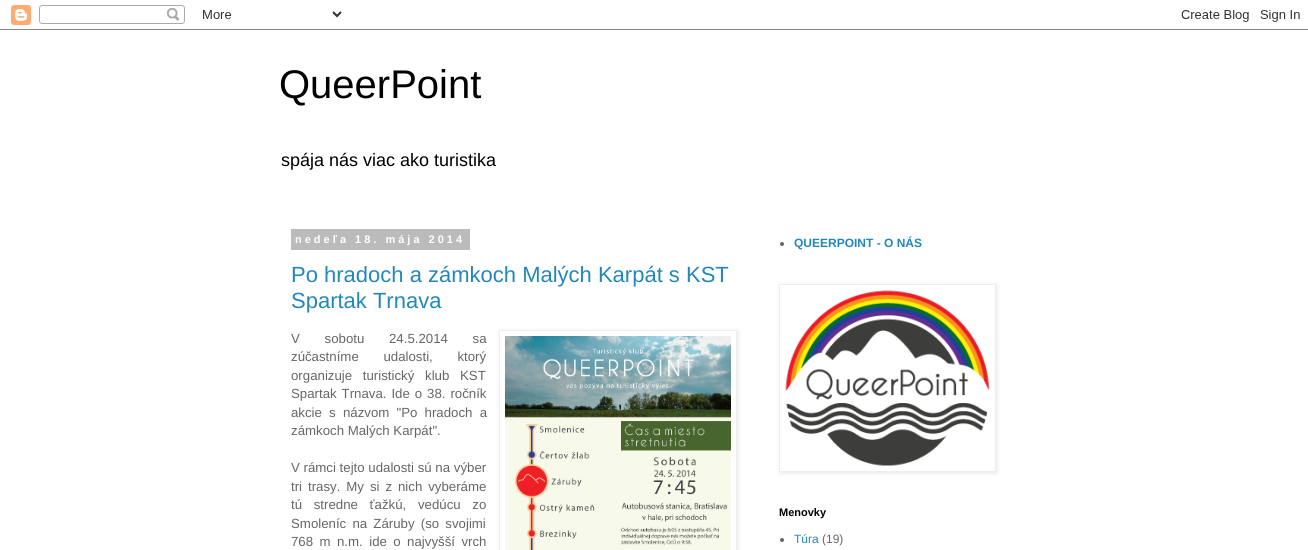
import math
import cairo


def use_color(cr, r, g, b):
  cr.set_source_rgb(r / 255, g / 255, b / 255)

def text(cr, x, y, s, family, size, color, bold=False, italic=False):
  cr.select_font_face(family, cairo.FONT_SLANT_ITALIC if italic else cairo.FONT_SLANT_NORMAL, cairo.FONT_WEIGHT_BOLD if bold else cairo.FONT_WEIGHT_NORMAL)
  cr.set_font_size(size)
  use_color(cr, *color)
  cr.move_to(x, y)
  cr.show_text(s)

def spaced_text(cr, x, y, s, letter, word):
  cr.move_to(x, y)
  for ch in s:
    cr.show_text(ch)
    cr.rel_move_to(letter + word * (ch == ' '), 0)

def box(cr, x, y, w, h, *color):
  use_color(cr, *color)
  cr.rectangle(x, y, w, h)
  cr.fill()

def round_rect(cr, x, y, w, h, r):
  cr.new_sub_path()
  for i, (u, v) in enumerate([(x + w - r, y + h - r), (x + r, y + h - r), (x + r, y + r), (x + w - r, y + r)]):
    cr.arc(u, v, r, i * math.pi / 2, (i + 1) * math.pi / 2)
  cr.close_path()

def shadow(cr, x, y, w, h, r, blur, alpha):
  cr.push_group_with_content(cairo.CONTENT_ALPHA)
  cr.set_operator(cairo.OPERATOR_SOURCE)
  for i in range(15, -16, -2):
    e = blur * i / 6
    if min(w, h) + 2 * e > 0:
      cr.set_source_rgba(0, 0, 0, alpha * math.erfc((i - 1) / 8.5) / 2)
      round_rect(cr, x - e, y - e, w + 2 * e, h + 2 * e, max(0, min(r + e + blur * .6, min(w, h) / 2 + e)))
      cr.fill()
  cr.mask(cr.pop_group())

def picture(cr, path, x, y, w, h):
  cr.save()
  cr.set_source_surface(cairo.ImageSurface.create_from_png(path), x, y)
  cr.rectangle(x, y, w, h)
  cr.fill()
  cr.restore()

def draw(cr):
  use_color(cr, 255, 255, 255)
  cr.paint()
  picture(cr, "img_01.png", 0, 5, 1308, 25)
  box(cr, 291, 229, 179, 21, 187, 187, 187)
  cr.save()
  cr.set_fill_rule(cairo.FILL_RULE_EVEN_ODD)
  cr.new_path()
  cr.move_to(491, 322)
  cr.line_to(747, 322)
  cr.line_to(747, 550)
  cr.line_to(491, 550)
  cr.close_path()
  cr.move_to(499, 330)
  cr.line_to(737, 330)
  cr.line_to(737, 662)
  cr.line_to(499, 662)
  cr.close_path()
  cr.clip()
  use_color(cr, 0, 0, 0)
  shadow(cr, 500, 331, 238, 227, 0, 2.5, 0.1)
  cr.restore()
  cr.rectangle(499.5, 330.5, 237, 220)
  use_color(cr, 238, 238, 238)
  cr.set_line_width(1)
  cr.stroke()
  picture(cr, "img_02.png", 505, 336, 226, 214)
  use_color(cr, 102, 102, 102)
  cr.arc(782, 244, 2, 0, 2 * math.pi)
  cr.fill()
  cr.save()
  cr.set_fill_rule(cairo.FILL_RULE_EVEN_ODD)
  cr.new_path()
  cr.move_to(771, 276)
  cr.line_to(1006, 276)
  cr.line_to(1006, 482)
  cr.line_to(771, 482)
  cr.close_path()
  cr.move_to(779, 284)
  cr.line_to(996, 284)
  cr.line_to(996, 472)
  cr.line_to(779, 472)
  cr.close_path()
  cr.clip()
  use_color(cr, 0, 0, 0)
  shadow(cr, 780, 285, 217, 188, 0, 2.5, 0.1)
  cr.restore()
  cr.rectangle(779.5, 284.5, 216, 187)
  use_color(cr, 238, 238, 238)
  cr.stroke()
  picture(cr, "img_03.png", 785, 290, 205, 176)
  use_color(cr, 102, 102, 102)
  cr.arc(782, 540, 2, 0, 2 * math.pi)
  cr.fill()
  text(cr, 279, 98, "QueerPoint", "Liberation Sans", 40, (0, 0, 0))
  text(cr, 281, 166, "spája nás viac ako turistika", "Liberation Sans", 18, (0, 0, 0))
  cr.select_font_face("Liberation Sans", cairo.FONT_SLANT_NORMAL, cairo.FONT_WEIGHT_BOLD)
  cr.set_font_size(11)
  use_color(cr, 255, 255, 255)
  spaced_text(cr, 295, 243, "nedeľa 18. mája 2014", 3, 0)
  text(cr, 291, 282, "Po hradoch a zámkoch Malých Karpát s KST", "Liberation Sans", 22, (34, 136, 187))
  text(cr, 291, 308, "Spartak Trnava", "Liberation Sans", 22, (34, 136, 187))
  cr.set_font_size(13.25)
  use_color(cr, 102, 102, 102)
  spaced_text(cr, 291, 343, "V sobotu 24.5.2014 sa", 0, 21)
  spaced_text(cr, 291, 361, "zúčastníme udalosti, ktorý", 0, 21)
  spaced_text(cr, 291, 380, "organizuje turistický klub KST", 0, 7)
  spaced_text(cr, 291, 398, "Spartak Trnava. Ide o 38. ročník", 0, 1.25)
  spaced_text(cr, 291, 417, "akcie s názvom \"Po hradoch a", 0, 3.5)
  text(cr, 291, 435, "zámkoch Malých Karpát\".", "Liberation Sans", 13.25, (102, 102, 102))
  text(cr, 291, 472, "V rámci tejto udalosti sú na výber", "Liberation Sans", 13.25, (102, 102, 102))
  spaced_text(cr, 291, 491, "tri trasy. My si z nich vyberáme", 0, 2.25)
  spaced_text(cr, 291, 509, "tú stredne ťažkú, vedúcu zo", 0, 8)
  spaced_text(cr, 291, 528, "Smoleníc na Záruby (so svojimi", 0, 2.5)
  spaced_text(cr, 291, 546, "768 m n.m. ide o najvyšší vrch", 0, 2.75)
  text(cr, 794, 247, "QUEERPOINT - O NÁS", "Liberation Sans", 12, (34, 136, 187), bold=True)
  text(cr, 779, 516, "Menovky", "Liberation Sans", 11, (0, 0, 0), bold=True)
  text(cr, 794, 543, "Túra", "Liberation Sans", 12, (34, 136, 187))
  text(cr, 822, 543, "(19)", "Liberation Sans", 12, (102, 102, 102))


surface = cairo.ImageSurface(cairo.FORMAT_RGB24, 1308, 550)
cr = cairo.Context(surface)
options = cairo.FontOptions()
options.set_hint_metrics(cairo.HINT_METRICS_OFF)
options.set_hint_style(cairo.HINT_STYLE_NONE)
cr.set_font_options(options)
cr.set_miter_limit(4)
draw(cr)
surface.write_to_png("out.png")
